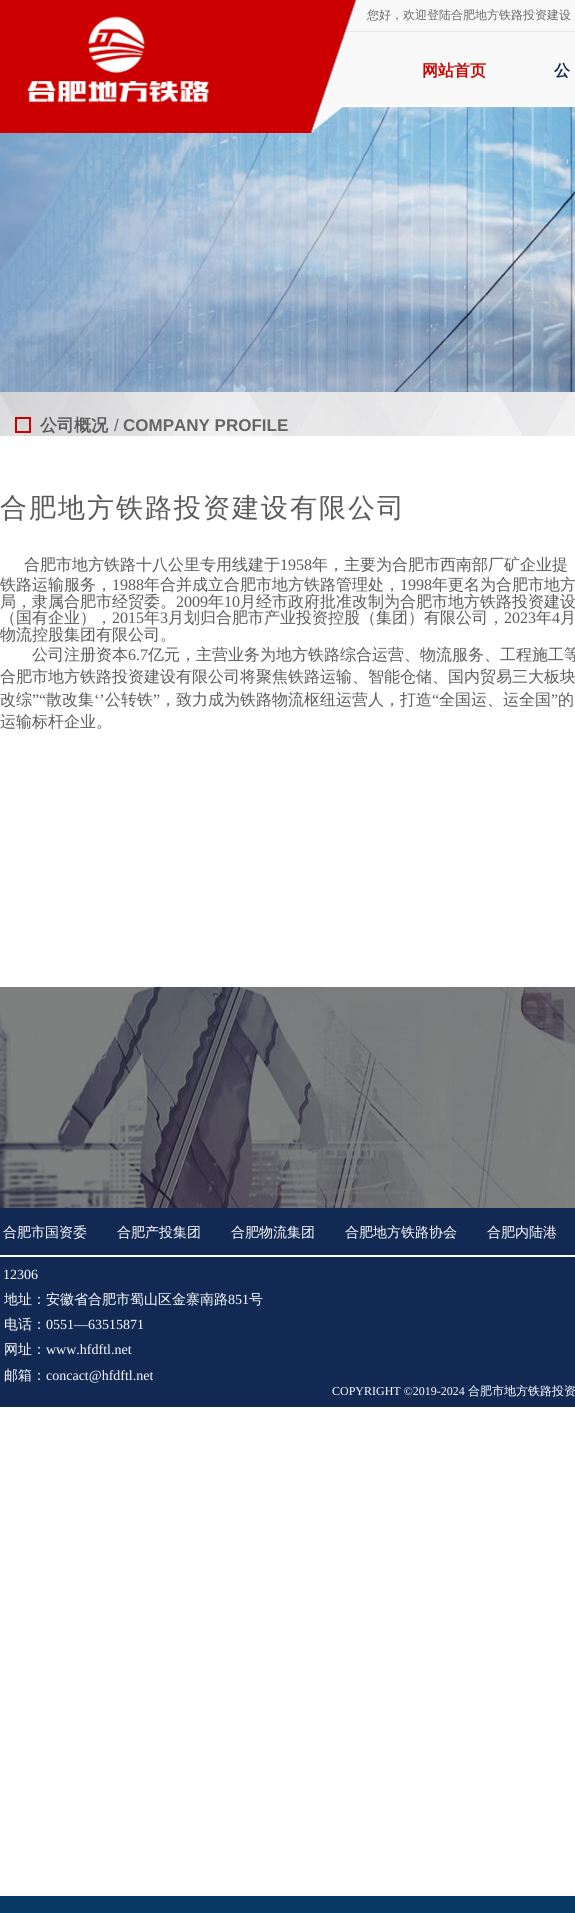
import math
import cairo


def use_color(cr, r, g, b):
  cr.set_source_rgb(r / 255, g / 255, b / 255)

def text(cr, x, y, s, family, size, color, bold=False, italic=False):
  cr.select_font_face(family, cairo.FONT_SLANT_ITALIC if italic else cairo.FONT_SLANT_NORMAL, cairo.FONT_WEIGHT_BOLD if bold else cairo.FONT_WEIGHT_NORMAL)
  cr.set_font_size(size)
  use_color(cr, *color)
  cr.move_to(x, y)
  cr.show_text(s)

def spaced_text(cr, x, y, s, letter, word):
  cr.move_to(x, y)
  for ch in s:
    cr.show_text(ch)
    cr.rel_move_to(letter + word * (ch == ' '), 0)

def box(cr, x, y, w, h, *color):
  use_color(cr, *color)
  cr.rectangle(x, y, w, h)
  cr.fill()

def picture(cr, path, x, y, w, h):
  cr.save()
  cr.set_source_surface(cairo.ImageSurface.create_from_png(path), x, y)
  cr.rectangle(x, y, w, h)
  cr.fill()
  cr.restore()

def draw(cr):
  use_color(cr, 255, 255, 255)
  cr.paint()
  picture(cr, "img_03.png", 0, 107, 575, 285)
  picture(cr, "img_01.png", 0, 0, 575, 133)
  picture(cr, "img_02.png", 27, 16, 182, 87)
  box(cr, 346, 31, 229, 1, 232, 232, 232)
  picture(cr, "img_04.png", 0, 392, 575, 44)
  picture(cr, "img_05.png", 15, 417, 16, 16)
  picture(cr, "img_06.png", 0, 987, 575, 221)
  box(cr, 0, 1208, 575, 199, 17, 41, 83)
  box(cr, 0, 1255, 575, 2, 255, 255, 255)
  box(cr, 0, 1896, 575, 17, 7, 55, 99)
  text(cr, 367, 19, "您好，欢迎登陆合肥地方铁路投资建设", "WenQuanYi Zen Hei Medium", 12, (102, 102, 102))
  text(cr, 422, 76, "网站首页", "WenQuanYi Zen Hei", 16, (204, 0, 0), bold=True)
  text(cr, 554, 76, "公", "WenQuanYi Zen Hei", 16, (17, 41, 83), bold=True)
  text(cr, 40, 431, "公司概况", "WenQuanYi Zen Hei", 17, (90, 90, 90), bold=True)
  text(cr, 114, 431, "/", "Liberation Sans", 17, (102, 102, 102))
  text(cr, 123, 431, "COMPANY PROFILE", "Liberation Sans", 17, (102, 102, 102), bold=True)
  cr.select_font_face("WenQuanYi Zen Hei Medium")
  cr.set_font_size(27)
  use_color(cr, 90, 90, 90)
  spaced_text(cr, 0, 517, "合肥地方铁路投资建设有限公司", 2, 0)
  text(cr, 24, 570, "合肥市地方铁路十八公里专用线建于", "WenQuanYi Zen Hei Medium", 16, (90, 90, 90))
  text(cr, 280, 570, "1958", "Liberation Serif", 16, (90, 90, 90))
  text(cr, 312, 570, "年，主要为合肥市西南部厂矿企业提", "WenQuanYi Zen Hei Medium", 16, (90, 90, 90))
  text(cr, 0, 590, "铁路运输服务，", "WenQuanYi Zen Hei Medium", 16, (90, 90, 90))
  text(cr, 112, 590, "1988", "Liberation Serif", 16, (90, 90, 90))
  text(cr, 144, 590, "年合并成立合肥市地方铁路管理处，", "WenQuanYi Zen Hei Medium", 16, (90, 90, 90))
  text(cr, 400, 590, "1998", "Liberation Serif", 16, (90, 90, 90))
  text(cr, 432, 590, "年更名为合肥市地方", "WenQuanYi Zen Hei Medium", 16, (90, 90, 90))
  text(cr, 0, 607, "局，隶属合肥市经贸委。", "WenQuanYi Zen Hei Medium", 16, (90, 90, 90))
  text(cr, 176, 607, "2009", "Liberation Serif", 16, (90, 90, 90))
  text(cr, 208, 607, "年", "WenQuanYi Zen Hei Medium", 16, (90, 90, 90))
  text(cr, 224, 607, "10", "Liberation Serif", 16, (90, 90, 90))
  text(cr, 240, 607, "月经市政府批准改制为合肥市地方铁路投资建设", "WenQuanYi Zen Hei Medium", 16, (90, 90, 90))
  text(cr, 0, 623, "（国有企业），", "WenQuanYi Zen Hei Medium", 16, (90, 90, 90))
  text(cr, 112, 623, "2015", "Liberation Serif", 16, (90, 90, 90))
  text(cr, 144, 623, "年", "WenQuanYi Zen Hei Medium", 16, (90, 90, 90))
  text(cr, 160, 623, "3", "Liberation Serif", 16, (90, 90, 90))
  text(cr, 168, 623, "月划归合肥市产业投资控股（集团）有限公司，", "WenQuanYi Zen Hei Medium", 16, (90, 90, 90))
  text(cr, 504, 623, "2023", "Liberation Serif", 16, (90, 90, 90))
  text(cr, 536, 623, "年", "WenQuanYi Zen Hei Medium", 16, (90, 90, 90))
  text(cr, 552, 623, "4", "Liberation Serif", 16, (90, 90, 90))
  text(cr, 560, 623, "月", "WenQuanYi Zen Hei Medium", 16, (90, 90, 90))
  text(cr, 0, 640, "物流控股集团有限公司。", "WenQuanYi Zen Hei Medium", 16, (90, 90, 90))
  text(cr, 32, 660, "公司注册资本", "WenQuanYi Zen Hei Medium", 16, (90, 90, 90))
  text(cr, 128, 660, "6.7", "Liberation Serif", 16, (90, 90, 90))
  text(cr, 148, 660, "亿元，主营业务为地方铁路综合运营、物流服务、工程施工等", "WenQuanYi Zen Hei Medium", 16, (90, 90, 90))
  text(cr, 0, 682, "合肥市地方铁路投资建设有限公司将聚焦铁路运输、智能仓储、国内贸易三大板块", "WenQuanYi Zen Hei Medium", 16, (90, 90, 90))
  text(cr, 0, 705, "改综", "WenQuanYi Zen Hei Medium", 16, (90, 90, 90))
  text(cr, 32, 705, "”“", "Liberation Serif", 16, (90, 90, 90))
  text(cr, 46, 705, "散改集", "WenQuanYi Zen Hei Medium", 16, (90, 90, 90))
  text(cr, 94, 705, "‘’", "Liberation Serif", 16, (90, 90, 90))
  text(cr, 105, 705, "公转铁", "WenQuanYi Zen Hei Medium", 16, (90, 90, 90))
  text(cr, 153, 705, "”", "Liberation Serif", 16, (90, 90, 90))
  text(cr, 160, 705, "，致力成为铁路物流枢纽运营人，打造", "WenQuanYi Zen Hei Medium", 16, (90, 90, 90))
  text(cr, 432, 705, "“", "Liberation Serif", 16, (90, 90, 90))
  text(cr, 439, 705, "全国运、运全国", "WenQuanYi Zen Hei Medium", 16, (90, 90, 90))
  text(cr, 551, 705, "”", "Liberation Serif", 16, (90, 90, 90))
  text(cr, 558, 705, "的", "WenQuanYi Zen Hei Medium", 16, (90, 90, 90))
  text(cr, 0, 727, "运输标杆企业。", "WenQuanYi Zen Hei Medium", 16, (90, 90, 90))
  text(cr, 3, 1237, "合肥市国资委", "WenQuanYi Zen Hei Medium", 14, (255, 255, 255))
  text(cr, 117, 1237, "合肥产投集团", "WenQuanYi Zen Hei Medium", 14, (255, 255, 255))
  text(cr, 231, 1237, "合肥物流集团", "WenQuanYi Zen Hei Medium", 14, (255, 255, 255))
  text(cr, 345, 1237, "合肥地方铁路协会", "WenQuanYi Zen Hei Medium", 14, (255, 255, 255))
  text(cr, 487, 1237, "合肥内陆港", "WenQuanYi Zen Hei Medium", 14, (255, 255, 255))
  text(cr, 3, 1279, "12306", "Liberation Serif", 14, (255, 255, 255))
  text(cr, 4, 1304, "地址：安徽省合肥市蜀山区金寨南路", "WenQuanYi Zen Hei Medium", 14, (255, 255, 255))
  text(cr, 228, 1304, "851", "Liberation Serif", 14, (255, 255, 255))
  text(cr, 249, 1304, "号", "WenQuanYi Zen Hei Medium", 14, (255, 255, 255))
  text(cr, 4, 1329, "电话：", "WenQuanYi Zen Hei Medium", 14, (255, 255, 255))
  text(cr, 46, 1329, "0551—63515871", "Liberation Serif", 14, (255, 255, 255))
  text(cr, 4, 1354, "网址：", "WenQuanYi Zen Hei Medium", 14, (255, 255, 255))
  text(cr, 46, 1354, "www.hfdftl.net", "Liberation Serif", 14, (255, 255, 255))
  text(cr, 4, 1380, "邮箱：", "WenQuanYi Zen Hei Medium", 14, (255, 255, 255))
  text(cr, 46, 1380, "concact@hfdftl.net", "Liberation Serif", 14, (255, 255, 255))
  text(cr, 332, 1395, "COPYRIGHT ©2019-2024", "Liberation Serif", 12, (255, 255, 255))
  text(cr, 468, 1395, "合肥市地方铁路投资", "WenQuanYi Zen Hei Medium", 12, (255, 255, 255))


surface = cairo.ImageSurface(cairo.FORMAT_RGB24, 575, 1913)
cr = cairo.Context(surface)
options = cairo.FontOptions()
options.set_hint_metrics(cairo.HINT_METRICS_OFF)
options.set_hint_style(cairo.HINT_STYLE_NONE)
cr.set_font_options(options)
cr.set_miter_limit(4)
draw(cr)
surface.write_to_png("out.png")
